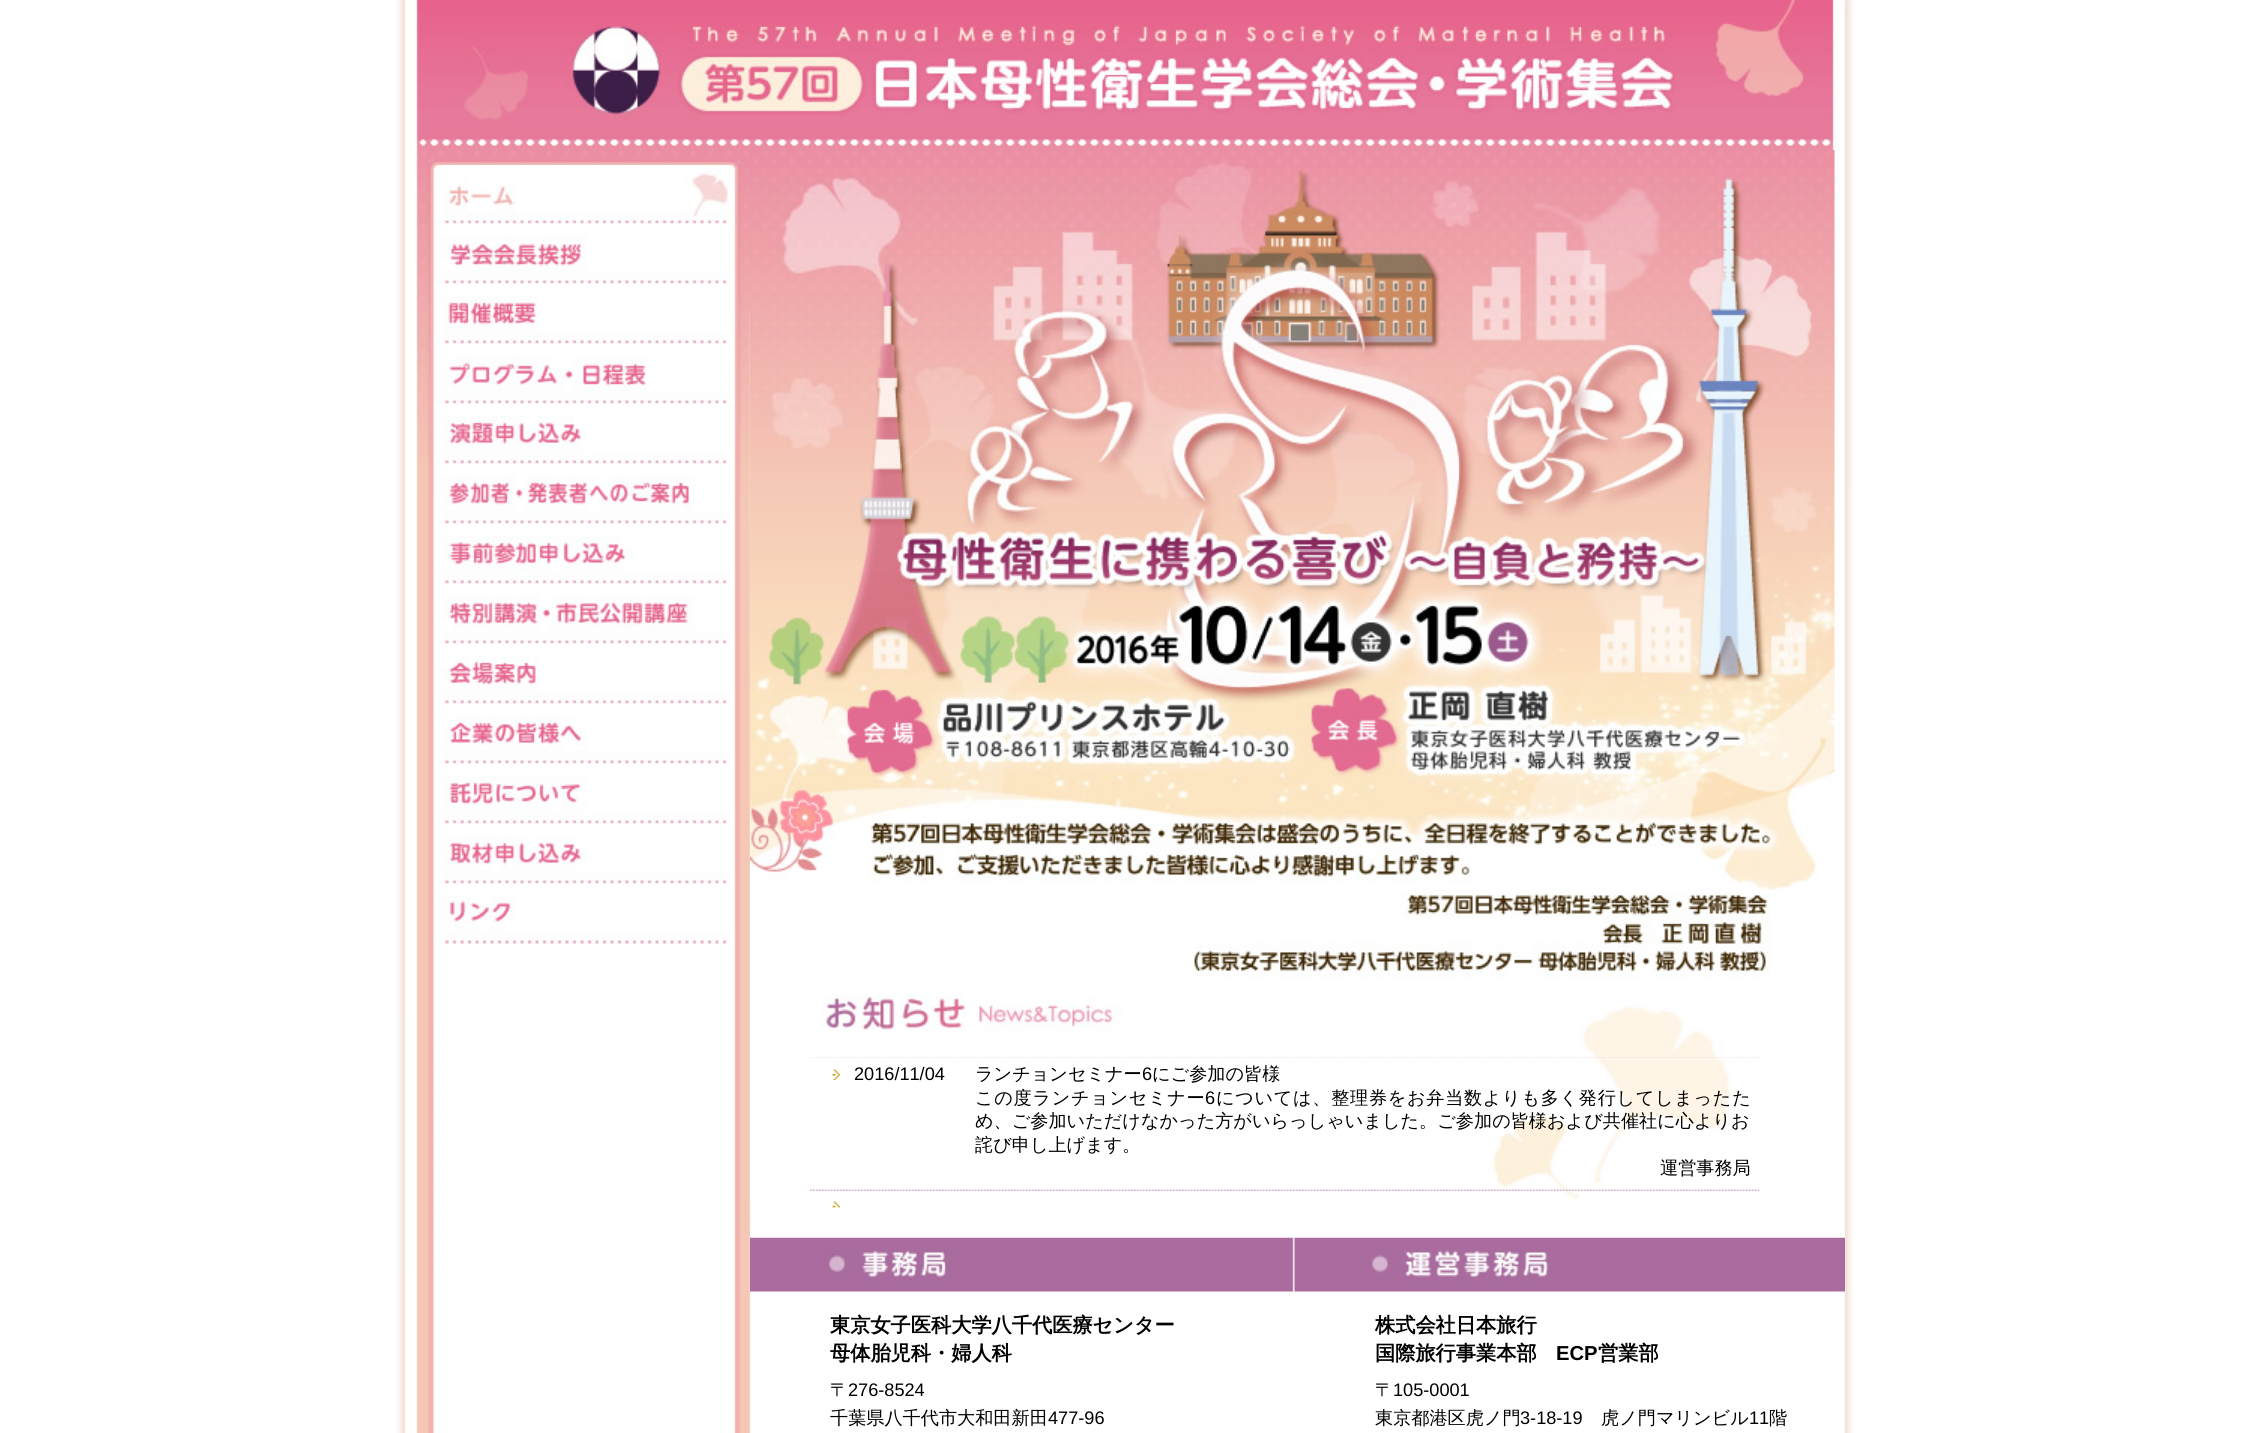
import math
import cairo


def use_color(cr, r, g, b):
  cr.set_source_rgb(r / 255, g / 255, b / 255)

def text(cr, x, y, s, family, size, color, bold=False, italic=False):
  cr.select_font_face(family, cairo.FONT_SLANT_ITALIC if italic else cairo.FONT_SLANT_NORMAL, cairo.FONT_WEIGHT_BOLD if bold else cairo.FONT_WEIGHT_NORMAL)
  cr.set_font_size(size)
  use_color(cr, *color)
  cr.move_to(x, y)
  cr.show_text(s)

def spaced_text(cr, x, y, s, letter, word):
  cr.move_to(x, y)
  for ch in s:
    cr.show_text(ch)
    cr.rel_move_to(letter + word * (ch == ' '), 0)

def picture(cr, path, x, y, w, h):
  cr.save()
  cr.set_source_surface(cairo.ImageSurface.create_from_png(path), x, y)
  cr.rectangle(x, y, w, h)
  cr.fill()
  cr.restore()

def draw(cr):
  use_color(cr, 255, 255, 255)
  cr.paint()
  picture(cr, "img_01.png", 396, 0, 1457, 1433)
  picture(cr, "img_02.png", 416, 0, 1438, 495)
  picture(cr, "img_03.png", 442, 165, 287, 59)
  picture(cr, "img_04.png", 443, 223, 286, 61)
  picture(cr, "img_05.png", 443, 283, 286, 61)
  picture(cr, "img_06.png", 443, 343, 286, 61)
  picture(cr, "img_07.png", 443, 403, 286, 61)
  picture(cr, "img_08.png", 443, 463, 286, 61)
  picture(cr, "img_09.png", 443, 523, 286, 61)
  picture(cr, "img_10.png", 443, 583, 286, 61)
  picture(cr, "img_11.png", 443, 643, 286, 61)
  picture(cr, "img_12.png", 443, 703, 286, 61)
  picture(cr, "img_13.png", 442, 763, 287, 61)
  picture(cr, "img_14.png", 443, 823, 286, 61)
  picture(cr, "img_15.png", 443, 883, 286, 61)
  picture(cr, "img_16.png", 750, 150, 1085, 1050)
  picture(cr, "img_17.png", 822, 994, 300, 37)
  picture(cr, "img_18.png", 810, 1057, 165, 1)
  picture(cr, "img_19.png", 832, 1069, 8, 11)
  picture(cr, "img_20.png", 975, 1057, 785, 1)
  picture(cr, "img_21.png", 810, 1189, 165, 2)
  picture(cr, "img_22.png", 832, 1201, 8, 7)
  picture(cr, "img_23.png", 975, 1189, 785, 2)
  picture(cr, "img_24.png", 750, 1237, 544, 55)
  picture(cr, "img_25.png", 1294, 1237, 551, 55)
  text(cr, 854, 1080, "2016/11/04", "Liberation Sans", 18.15, (0, 0, 0))
  text(cr, 975, 1080, "ランチョンセミナー", "WenQuanYi Zen Hei Medium", 18.15, (0, 0, 0))
  text(cr, 1142, 1080, "6", "Liberation Sans", 18.15, (0, 0, 0))
  text(cr, 1152, 1080, "にご参加の皆様", "WenQuanYi Zen Hei Medium", 18.15, (0, 0, 0))
  spaced_text(cr, 975, 1104, "この度ランチョンセミナー", 0.7, 0)
  cr.select_font_face("Liberation Sans")
  spaced_text(cr, 1205, 1104, "6", 0.7, 0)
  cr.select_font_face("WenQuanYi Zen Hei Medium")
  spaced_text(cr, 1216, 1104, "については、整理券をお弁当数よりも多く発行してしまったた", 0.7, 0)
  text(cr, 975, 1127, "め、ご参加いただけなかった方がいらっしゃいました。ご参加の皆様および共催社に心よりお", "WenQuanYi Zen Hei Medium", 18.15, (0, 0, 0))
  text(cr, 975, 1151, "詫び申し上げます。", "WenQuanYi Zen Hei Medium", 18.15, (0, 0, 0))
  text(cr, 1660, 1174, "運営事務局", "WenQuanYi Zen Hei Medium", 18.15, (0, 0, 0))
  text(cr, 830, 1332, "東京女子医科大学八千代医療センター", "WenQuanYi Zen Hei", 20.2, (0, 0, 0), bold=True)
  text(cr, 830, 1360, "母体胎児科・婦人科", "WenQuanYi Zen Hei", 20.2, (0, 0, 0), bold=True)
  text(cr, 830, 1396, "〒", "WenQuanYi Zen Hei Medium", 18.15, (0, 0, 0))
  text(cr, 848, 1396, "276-8524", "Liberation Sans", 18.15, (0, 0, 0))
  text(cr, 830, 1424, "千葉県八千代市大和田新田", "WenQuanYi Zen Hei Medium", 18.15, (0, 0, 0))
  text(cr, 1048, 1424, "477-96", "Liberation Sans", 18.15, (0, 0, 0))
  text(cr, 1375, 1332, "株式会社日本旅行", "WenQuanYi Zen Hei", 20.2, (0, 0, 0), bold=True)
  text(cr, 1375, 1360, "国際旅行事業本部", "WenQuanYi Zen Hei", 20.2, (0, 0, 0), bold=True)
  text(cr, 1556, 1360, "ECP", "Liberation Sans", 20.2, (0, 0, 0), bold=True)
  text(cr, 1598, 1360, "営業部", "WenQuanYi Zen Hei", 20.2, (0, 0, 0), bold=True)
  text(cr, 1375, 1396, "〒", "WenQuanYi Zen Hei Medium", 18.15, (0, 0, 0))
  text(cr, 1393, 1396, "105-0001", "Liberation Sans", 18.15, (0, 0, 0))
  text(cr, 1375, 1424, "東京都港区虎ノ門", "WenQuanYi Zen Hei Medium", 18.15, (0, 0, 0))
  text(cr, 1520, 1424, "3-18-19", "Liberation Sans", 18.15, (0, 0, 0))
  text(cr, 1601, 1424, "虎ノ門マリンビル", "WenQuanYi Zen Hei Medium", 18.15, (0, 0, 0))
  text(cr, 1749, 1424, "11", "Liberation Sans", 18.15, (0, 0, 0))
  text(cr, 1769, 1424, "階", "WenQuanYi Zen Hei Medium", 18.15, (0, 0, 0))


surface = cairo.ImageSurface(cairo.FORMAT_RGB24, 2250, 1433)
cr = cairo.Context(surface)
options = cairo.FontOptions()
options.set_hint_metrics(cairo.HINT_METRICS_OFF)
options.set_hint_style(cairo.HINT_STYLE_NONE)
cr.set_font_options(options)
cr.set_miter_limit(4)
draw(cr)
surface.write_to_png("out.png")
